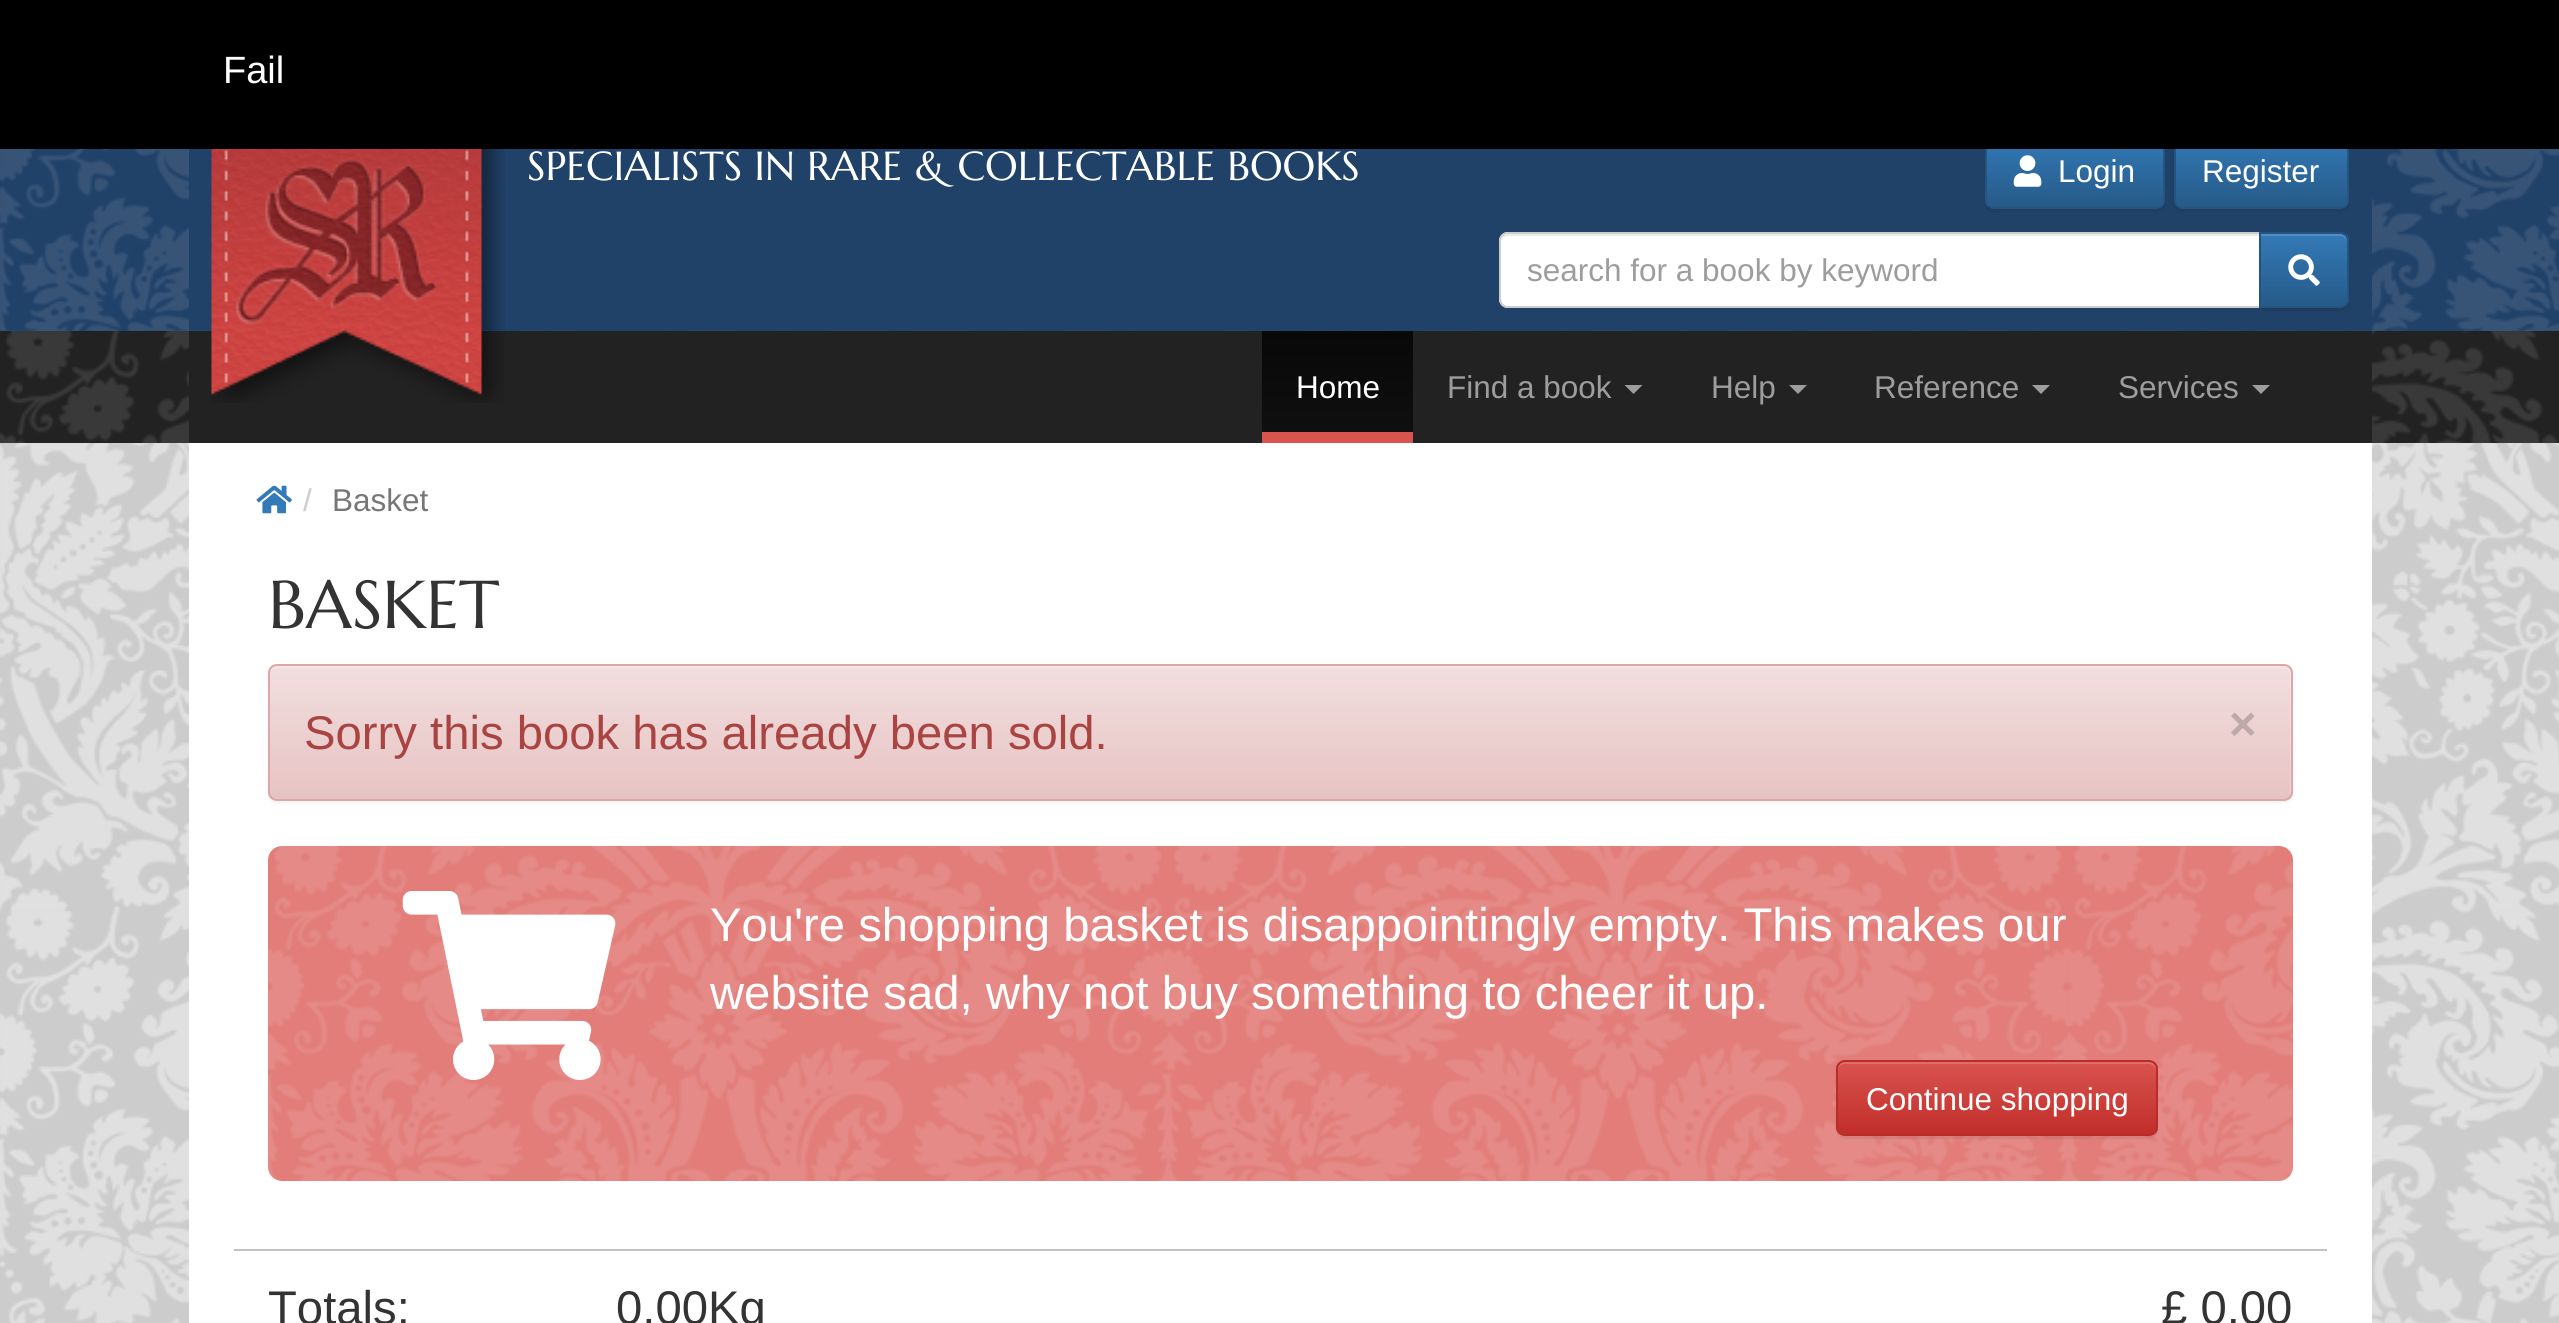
import math
import cairo


def use_color(cr, r, g, b):
  cr.set_source_rgb(r / 255, g / 255, b / 255)

def text(cr, x, y, s, family, size, color, bold=False, italic=False):
  cr.select_font_face(family, cairo.FONT_SLANT_ITALIC if italic else cairo.FONT_SLANT_NORMAL, cairo.FONT_WEIGHT_BOLD if bold else cairo.FONT_WEIGHT_NORMAL)
  cr.set_font_size(size)
  use_color(cr, *color)
  cr.move_to(x, y)
  cr.show_text(s)

def box(cr, x, y, w, h, *color):
  use_color(cr, *color)
  cr.rectangle(x, y, w, h)
  cr.fill()

def round_rect(cr, x, y, w, h, r):
  cr.new_sub_path()
  for i, (u, v) in enumerate([(x + w - r, y + h - r), (x + r, y + h - r), (x + r, y + r), (x + w - r, y + r)]):
    cr.arc(u, v, r, i * math.pi / 2, (i + 1) * math.pi / 2)
  cr.close_path()

def shadow(cr, x, y, w, h, r, blur, alpha):
  cr.push_group_with_content(cairo.CONTENT_ALPHA)
  cr.set_operator(cairo.OPERATOR_SOURCE)
  for i in range(15, -16, -2):
    e = blur * i / 6
    if min(w, h) + 2 * e > 0:
      cr.set_source_rgba(0, 0, 0, alpha * math.erfc((i - 1) / 8.5) / 2)
      round_rect(cr, x - e, y - e, w + 2 * e, h + 2 * e, max(0, min(r + e + blur * .6, min(w, h) / 2 + e)))
      cr.fill()
  cr.mask(cr.pop_group())

def picture(cr, path, x, y, w, h):
  cr.save()
  cr.set_source_surface(cairo.ImageSurface.create_from_png(path), x, y)
  cr.rectangle(x, y, w, h)
  cr.fill()
  cr.restore()

def draw(cr):
  use_color(cr, 204, 204, 204)
  cr.paint()
  picture(cr, "img_01.png", 0, 443, 2559, 880)
  box(cr, 0, 149, 2559, 182, 32, 65, 104)
  picture(cr, "img_02.png", 0, 149, 2559, 182)
  box(cr, 189, 149, 2183, 182, 32, 65, 104)
  use_color(cr, 0, 0, 0)
  shadow(cr, 1985, 135, 180, 77, 9, 1, 0.07)
  cr.save()
  round_rect(cr, 1985, 133, 180, 76, 9)
  cr.clip()
  gradient = cairo.LinearGradient(2075, 135, 2075, 207)
  gradient.add_color_stop_rgba(0, 0.2, 0.478, 0.718, 1)
  gradient.add_color_stop_rgba(1, 0.149, 0.353, 0.533, 1)
  cr.set_source(gradient)
  cr.rectangle(1985, 149, 180, 58)
  cr.fill()
  cr.restore()
  round_rect(cr, 1986, 134, 178, 74, 8)
  use_color(cr, 36, 85, 128)
  cr.stroke()
  use_color(cr, 0, 0, 0)
  shadow(cr, 2174, 135, 175, 77, 9, 1, 0.07)
  cr.save()
  round_rect(cr, 2174, 133, 175, 76, 9)
  cr.clip()
  gradient = cairo.LinearGradient(2261, 135, 2261, 207)
  gradient.add_color_stop_rgba(0, 0.2, 0.478, 0.718, 1)
  gradient.add_color_stop_rgba(1, 0.149, 0.353, 0.533, 1)
  cr.set_source(gradient)
  cr.rectangle(2174, 149, 175, 58)
  cr.fill()
  cr.restore()
  round_rect(cr, 2175, 134, 173, 74, 8)
  use_color(cr, 36, 85, 128)
  cr.stroke()
  box(cr, 0, 0, 2559, 149, 0, 0, 0)
  box(cr, 0, 331, 2559, 112, 34, 34, 34)
  picture(cr, "img_06.png", 0, 330, 2558, 113)
  box(cr, 189, 331, 2183, 112, 34, 34, 34)
  picture(cr, "img_03.png", 211, 149, 294, 254)
  picture(cr, "img_04.png", 2013, 155, 29, 32)
  use_color(cr, 255, 255, 255)
  cr.new_path()
  cr.move_to(1508, 232)
  cr.line_to(2261, 232)
  cr.line_to(2261, 308)
  cr.line_to(1508, 308)
  cr.curve_to(1503, 308, 1499, 304, 1499, 299)
  cr.line_to(1499, 241)
  cr.curve_to(1499, 236, 1503, 232, 1508, 232)
  cr.close_path()
  cr.fill()
  use_color(cr, 236, 236, 236)
  cr.new_path()
  cr.move_to(1508, 236)
  cr.line_to(2259, 236)
  cr.line_to(2259, 234)
  cr.line_to(1508, 234)
  cr.curve_to(1504, 234, 1501, 237, 1501, 241)
  cr.line_to(1501, 243)
  cr.curve_to(1501, 239, 1504, 236, 1508, 236)
  cr.close_path()
  cr.fill()
  cr.new_path()
  cr.move_to(1508, 233)
  cr.line_to(2260, 233)
  cr.line_to(2260, 307)
  cr.line_to(1508, 307)
  cr.curve_to(1503.5, 307, 1500, 303.5, 1500, 299)
  cr.line_to(1500, 241)
  cr.curve_to(1500, 236.5, 1503.5, 233, 1508, 233)
  cr.close_path()
  use_color(cr, 204, 204, 204)
  cr.stroke()
  use_color(cr, 0, 0, 0)
  shadow(cr, 2259, 234, 90, 77, 9, 1, 0.07)
  cr.save()
  cr.new_path()
  cr.move_to(2259, 232)
  cr.line_to(2340, 232)
  cr.curve_to(2345, 232, 2349, 236, 2349, 241)
  cr.line_to(2349, 299)
  cr.curve_to(2349, 304, 2345, 308, 2340, 308)
  cr.line_to(2259, 308)
  cr.close_path()
  cr.clip()
  gradient = cairo.LinearGradient(2304, 234, 2304, 306)
  gradient.add_color_stop_rgba(0, 0.2, 0.478, 0.718, 1)
  gradient.add_color_stop_rgba(1, 0.149, 0.353, 0.533, 1)
  cr.set_source(gradient)
  cr.rectangle(2261, 234, 88, 72)
  cr.fill()
  cr.restore()
  cr.set_source_rgba(1, 1, 1, 0.15)
  cr.new_path()
  cr.move_to(2261, 236)
  cr.line_to(2340, 236)
  cr.curve_to(2344, 236, 2347, 239, 2347, 243)
  cr.line_to(2347, 241)
  cr.curve_to(2347, 237, 2344, 234, 2340, 234)
  cr.line_to(2261, 234)
  cr.close_path()
  cr.fill()
  cr.new_path()
  cr.move_to(2260, 233)
  cr.line_to(2340, 233)
  cr.curve_to(2344.5, 233, 2348, 236.5, 2348, 241)
  cr.line_to(2348, 299)
  cr.curve_to(2348, 303.5, 2344.5, 307, 2340, 307)
  cr.line_to(2260, 307)
  cr.close_path()
  use_color(cr, 36, 85, 128)
  cr.stroke()
  picture(cr, "img_05.png", 2288, 254, 32, 32)
  gradient = cairo.LinearGradient(1338, 331, 1338, 432)
  gradient.add_color_stop_rgba(0, 0.031, 0.031, 0.031, 1)
  gradient.add_color_stop_rgba(1, 0.059, 0.059, 0.059, 1)
  cr.set_source(gradient)
  cr.rectangle(1262, 331, 151, 101)
  cr.fill()
  box(cr, 1262, 432, 151, 11, 217, 83, 79)
  use_color(cr, 157, 157, 157)
  cr.new_path()
  cr.move_to(1624.5, 385)
  cr.line_to(1642.5, 385)
  cr.line_to(1633.5, 394)
  cr.close_path()
  cr.fill()
  cr.new_path()
  cr.move_to(1789, 385)
  cr.line_to(1807, 385)
  cr.line_to(1798, 394)
  cr.close_path()
  cr.fill()
  cr.new_path()
  cr.move_to(2032, 385)
  cr.line_to(2050, 385)
  cr.line_to(2041, 394)
  cr.close_path()
  cr.fill()
  cr.new_path()
  cr.move_to(2252, 385)
  cr.line_to(2270, 385)
  cr.line_to(2261, 394)
  cr.close_path()
  cr.fill()
  box(cr, 189, 443, 2183, 880, 255, 255, 255)
  picture(cr, "img_07.png", 256, 485, 36, 29)
  use_color(cr, 0, 0, 0)
  shadow(cr, 268, 666, 2025, 137, 9, 2, 0.05)
  cr.save()
  round_rect(cr, 268, 664, 2025, 137, 9)
  cr.clip()
  gradient = cairo.LinearGradient(1280, 666, 1280, 799)
  gradient.add_color_stop_rgba(0, 0.949, 0.871, 0.871, 1)
  gradient.add_color_stop_rgba(1, 0.906, 0.765, 0.765, 1)
  cr.set_source(gradient)
  cr.rectangle(268, 666, 2025, 133)
  cr.fill()
  cr.restore()
  cr.set_source_rgba(1, 1, 1, 0.25)
  cr.new_path()
  cr.move_to(277, 668)
  cr.line_to(2284, 668)
  cr.curve_to(2287, 668, 2290, 671, 2290, 675)
  cr.line_to(2290, 796)
  cr.curve_to(2291, 795, 2291, 793, 2291, 792)
  cr.line_to(2291, 673)
  cr.curve_to(2291, 669, 2288, 666, 2284, 666)
  cr.line_to(277, 666)
  cr.curve_to(273, 666, 270, 669, 270, 673)
  cr.line_to(270, 675)
  cr.curve_to(270, 671, 273, 668, 277, 668)
  cr.close_path()
  cr.fill()
  round_rect(cr, 269, 665, 2023, 135, 8)
  use_color(cr, 220, 167, 167)
  cr.stroke()
  use_color(cr, 226, 125, 121)
  round_rect(cr, 268, 846, 2025, 335, 14)
  cr.fill()
  picture(cr, "img_08.png", 268, 846, 2025, 335)
  picture(cr, "img_09.png", 402, 891, 214, 189)
  use_color(cr, 0, 0, 0)
  shadow(cr, 1836, 1062, 322, 77, 9, 1, 0.07)
  cr.save()
  round_rect(cr, 1836, 1060, 322, 76, 9)
  cr.clip()
  gradient = cairo.LinearGradient(1997, 1062, 1997, 1134)
  gradient.add_color_stop_rgba(0, 0.851, 0.325, 0.31, 1)
  gradient.add_color_stop_rgba(1, 0.757, 0.18, 0.165, 1)
  cr.set_source(gradient)
  cr.rectangle(1836, 1062, 322, 72)
  cr.fill()
  cr.restore()
  cr.set_source_rgba(1, 1, 1, 0.15)
  cr.new_path()
  cr.move_to(1845, 1064)
  cr.line_to(2149, 1064)
  cr.curve_to(2152, 1064, 2156, 1067, 2156, 1071)
  cr.line_to(2156, 1069)
  cr.curve_to(2156, 1065, 2153, 1062, 2149, 1062)
  cr.line_to(1845, 1062)
  cr.curve_to(1841, 1062, 1838, 1065, 1838, 1069)
  cr.line_to(1838, 1071)
  cr.curve_to(1838, 1067, 1841, 1064, 1845, 1064)
  cr.close_path()
  cr.fill()
  round_rect(cr, 1837, 1061, 320, 74, 8)
  use_color(cr, 185, 44, 40)
  cr.stroke()
  box(cr, 234, 1249, 2093, 2, 194, 194, 194)
  text(cr, 223, 83, "Fail", "Liberation Sans", 38, (255, 255, 255))
  text(cr, 527, 180, "SPECIALISTS IN RARE & COLLECTABLE BOOKS", "Marcellus", 40.5, (255, 255, 255))
  text(cr, 2058, 182, "Login", "Liberation Sans", 31.5, (255, 255, 255))
  text(cr, 2202, 182, "Register", "Liberation Sans", 31.5, (255, 255, 255))
  text(cr, 1527, 281, "search for a book by keyword", "Liberation Sans", 31.5, (157, 157, 157))
  text(cr, 1296, 398, "Home", "Liberation Sans", 31.5, (255, 255, 255))
  text(cr, 1447, 398, "Find a book", "Liberation Sans", 31.5, (157, 157, 157))
  text(cr, 1711, 398, "Help", "Liberation Sans", 31.5, (157, 157, 157))
  text(cr, 1874, 398, "Reference", "Liberation Sans", 31.5, (157, 157, 157))
  text(cr, 2118, 398, "Services", "Liberation Sans", 31.5, (157, 157, 157))
  text(cr, 303, 511, "/", "Liberation Sans", 31.5, (204, 204, 204))
  text(cr, 332, 511, "Basket", "Liberation Sans", 31.5, (119, 119, 119))
  text(cr, 268, 628, "BASKET", "Marcellus", 67.5, (51, 51, 51))
  text(cr, 304, 749, "Sorry this book has already been sold.", "Liberation Sans", 47.25, (169, 68, 66))
  text(cr, 2229, 740, "×", "Liberation Sans", 47.25, (190, 168, 168), bold=True)
  text(cr, 710, 941, "You're shopping basket is disappointingly empty. This makes our", "Liberation Sans", 47.25, (255, 255, 255))
  text(cr, 710, 1009, "website sad, why not buy something to cheer it up.", "Liberation Sans", 47.25, (255, 255, 255))
  text(cr, 1866, 1110, "Continue shopping", "Liberation Sans", 31.5, (255, 255, 255))
  text(cr, 268, 1324, "Totals:", "Liberation Sans", 47.25, (51, 51, 51))
  text(cr, 616, 1324, "0.00Kg", "Liberation Sans", 47.25, (51, 51, 51))
  text(cr, 2161, 1324, "£ 0.00", "Liberation Sans", 47.25, (51, 51, 51))


surface = cairo.ImageSurface(cairo.FORMAT_RGB24, 2559, 1323)
cr = cairo.Context(surface)
options = cairo.FontOptions()
options.set_hint_metrics(cairo.HINT_METRICS_OFF)
options.set_hint_style(cairo.HINT_STYLE_NONE)
cr.set_font_options(options)
cr.set_miter_limit(4)
draw(cr)
surface.write_to_png("out.png")
